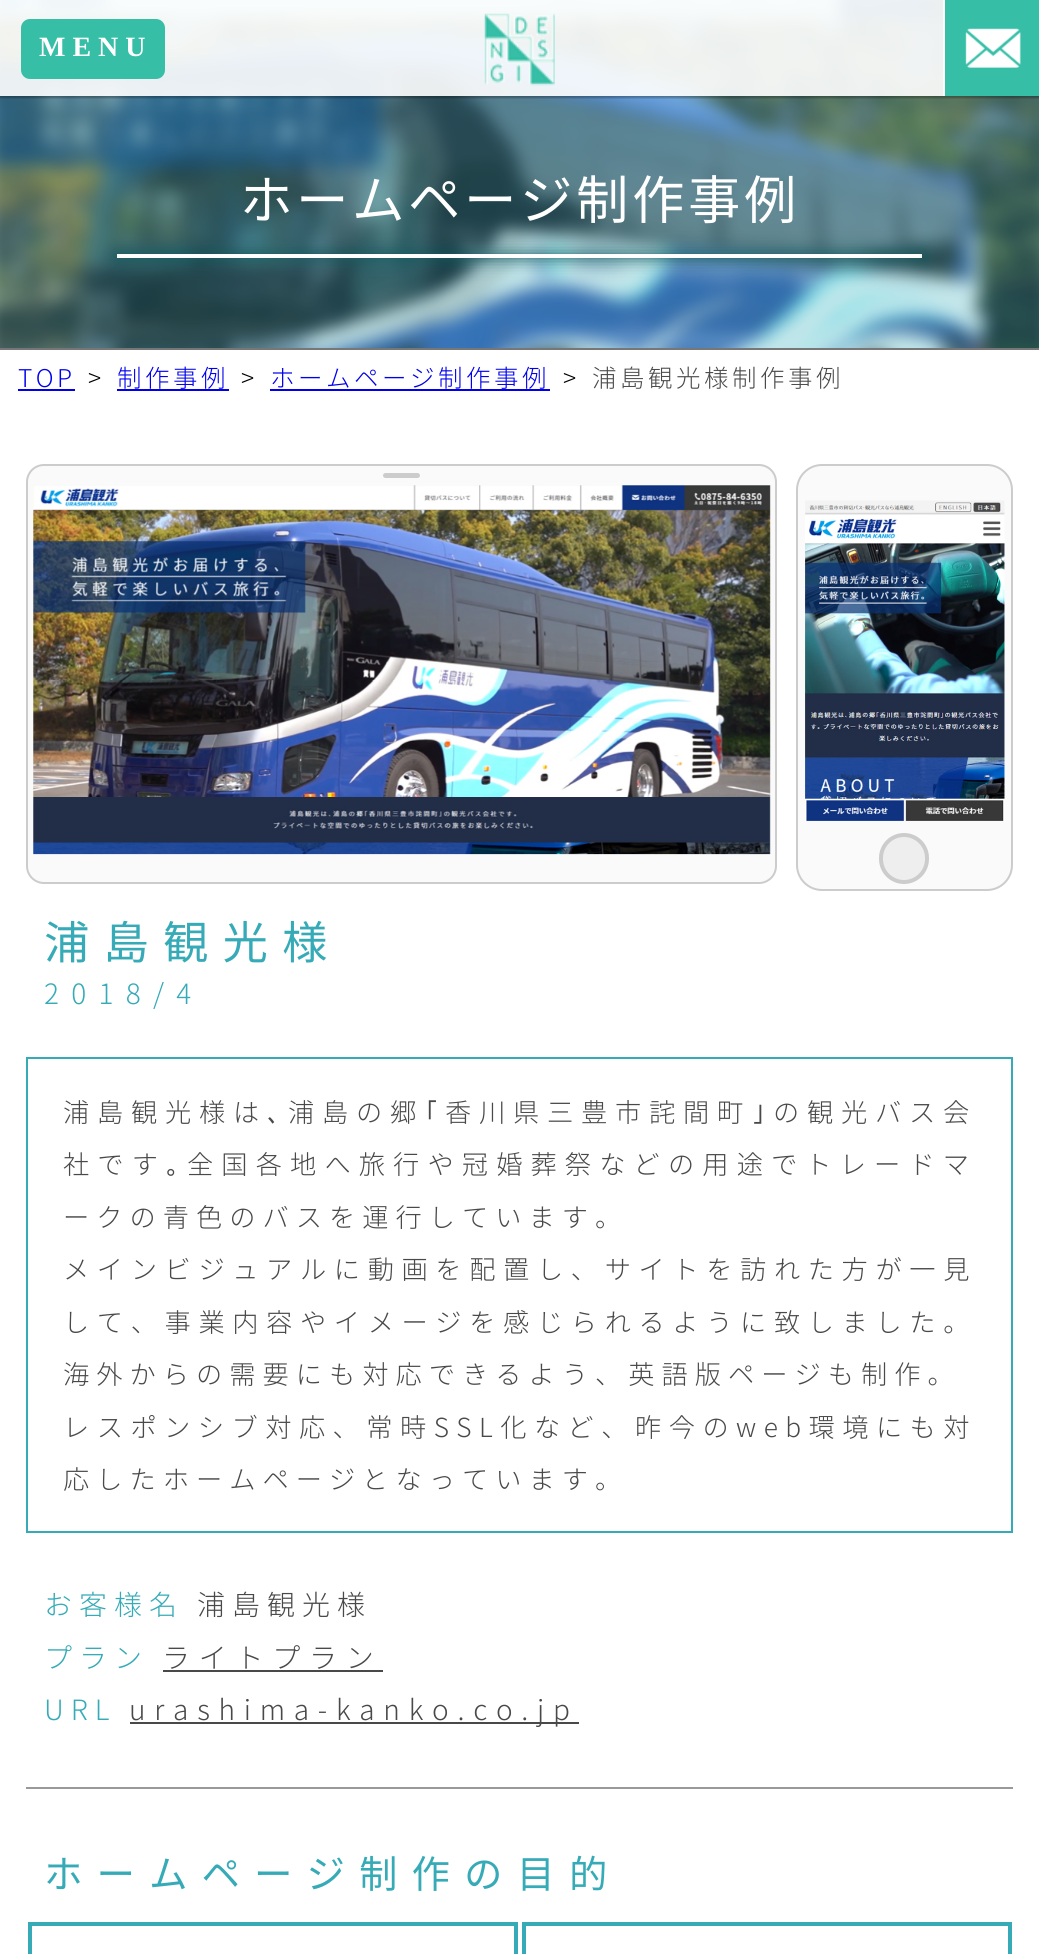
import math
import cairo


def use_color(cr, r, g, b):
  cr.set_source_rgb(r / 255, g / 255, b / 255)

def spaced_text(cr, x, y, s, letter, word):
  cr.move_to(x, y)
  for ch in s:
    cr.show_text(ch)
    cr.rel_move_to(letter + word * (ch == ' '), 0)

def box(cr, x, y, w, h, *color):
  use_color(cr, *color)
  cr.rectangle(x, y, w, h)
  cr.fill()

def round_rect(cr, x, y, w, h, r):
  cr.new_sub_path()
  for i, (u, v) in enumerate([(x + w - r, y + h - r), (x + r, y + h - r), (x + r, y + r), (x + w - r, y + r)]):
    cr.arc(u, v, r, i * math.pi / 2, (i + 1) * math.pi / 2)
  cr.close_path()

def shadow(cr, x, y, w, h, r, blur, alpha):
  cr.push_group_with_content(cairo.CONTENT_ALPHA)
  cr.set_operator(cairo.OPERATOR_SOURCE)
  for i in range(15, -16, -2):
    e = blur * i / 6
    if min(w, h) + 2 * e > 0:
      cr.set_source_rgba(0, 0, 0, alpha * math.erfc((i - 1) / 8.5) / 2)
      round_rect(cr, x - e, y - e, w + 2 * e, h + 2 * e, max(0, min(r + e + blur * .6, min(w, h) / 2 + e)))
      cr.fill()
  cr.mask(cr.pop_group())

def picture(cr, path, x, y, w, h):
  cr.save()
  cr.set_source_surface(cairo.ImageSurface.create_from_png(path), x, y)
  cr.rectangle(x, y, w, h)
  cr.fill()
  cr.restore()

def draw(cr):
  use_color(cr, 255, 255, 255)
  cr.paint()
  picture(cr, "img_03.png", 0, 0, 1039, 348)
  cr.set_source_rgba(0.212, 0.671, 0.718, 0.3)
  cr.rectangle(0, 0, 1039, 348)
  cr.fill()
  cr.save()
  cr.rectangle(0, 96, 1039, 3)
  cr.clip()
  use_color(cr, 0, 0, 0)
  shadow(cr, -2, -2, 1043, 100, 0, 1, 0.3)
  cr.restore()
  cr.set_source_rgba(1, 1, 1, 0.9)
  cr.rectangle(0, 0, 943, 96)
  cr.fill()
  use_color(cr, 54, 190, 166)
  round_rect(cr, 23, 21, 140, 56, 7)
  cr.fill_preserve()
  cr.set_line_width(4)
  cr.stroke()
  picture(cr, "img_01.png", 484, 13, 71, 73)
  box(cr, 945, 0, 94, 96, 54, 190, 166)
  box(cr, 943, 0, 2, 96, 255, 255, 255)
  picture(cr, "img_02.png", 965, 28, 56, 40)
  box(cr, 0, 348, 1039, 2, 119, 119, 119)
  use_color(cr, 16, 89, 96)
  shadow(cr, 117, 254, 805, 4, 0, 9, 1)
  box(cr, 117, 254, 805, 4, 255, 255, 255)
  box(cr, 18, 389, 57, 2, 0, 0, 238)
  box(cr, 117, 389, 112, 2, 0, 0, 238)
  box(cr, 270, 389, 280, 2, 0, 0, 238)
  use_color(cr, 250, 250, 250)
  round_rect(cr, 27, 465, 749, 418, 17)
  cr.fill_preserve()
  use_color(cr, 204, 204, 204)
  cr.set_line_width(2)
  cr.stroke()
  round_rect(cr, 383, 473, 37, 5, 2.5)
  cr.fill()
  picture(cr, "img_04.png", 33, 485, 738, 370)
  use_color(cr, 250, 250, 250)
  round_rect(cr, 797, 465, 215, 425, 25)
  cr.fill_preserve()
  use_color(cr, 204, 204, 204)
  cr.stroke()
  picture(cr, "img_05.png", 805, 500, 200, 321)
  use_color(cr, 238, 238, 238)
  round_rect(cr, 881, 835, 46, 47, 23)
  cr.fill_preserve()
  use_color(cr, 204, 204, 204)
  cr.set_line_width(4)
  cr.stroke()
  box(cr, 26, 1787, 987, 2, 153, 153, 153)
  cr.rectangle(27, 1058, 985, 474)
  use_color(cr, 54, 171, 183)
  cr.set_line_width(2)
  cr.stroke()
  box(cr, 163, 1670, 220, 2, 73, 73, 73)
  box(cr, 130, 1722, 449, 2, 73, 73, 73)
  cr.rectangle(30, 1924, 486, 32)
  use_color(cr, 54, 171, 183)
  cr.set_line_width(4)
  cr.stroke()
  cr.rectangle(524, 1924, 486, 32)
  cr.stroke()
  cr.select_font_face("Liberation Serif", cairo.FONT_SLANT_NORMAL, cairo.FONT_WEIGHT_BOLD)
  cr.set_font_size(28)
  use_color(cr, 255, 255, 255)
  spaced_text(cr, 39, 56, "MENU", 7, 0)
  cr.select_font_face("Noto Sans JP")
  cr.set_font_size(52.5)
  spaced_text(cr, 240, 219, "ホームページ制作事例", 3.5, 0)
  cr.select_font_face("Noto Sans JP Light")
  cr.set_font_size(24.5)
  use_color(cr, 0, 0, 238)
  spaced_text(cr, 18, 387, "TOP", 3.5, 0)
  use_color(cr, 0, 0, 0)
  spaced_text(cr, 88, 387, ">", 3.5, 0)
  use_color(cr, 0, 0, 238)
  spaced_text(cr, 117, 387, "制作事例", 3.5, 0)
  use_color(cr, 0, 0, 0)
  spaced_text(cr, 241, 387, ">", 3.5, 0)
  use_color(cr, 0, 0, 238)
  spaced_text(cr, 270, 387, "ホームページ制作事例", 3.5, 0)
  use_color(cr, 0, 0, 0)
  spaced_text(cr, 563, 387, ">", 3.5, 0)
  use_color(cr, 73, 73, 73)
  spaced_text(cr, 592, 387, "浦島観光様制作事例", 3.5, 0)
  cr.select_font_face("Noto Sans JP")
  cr.set_font_size(45.5)
  use_color(cr, 54, 171, 183)
  spaced_text(cr, 44, 959, "浦島観光様", 14, 0)
  cr.select_font_face("Noto Sans JP Light")
  cr.set_font_size(28)
  spaced_text(cr, 44, 1004, "2018/4", 12.25, 0)
  cr.set_font_size(26.25)
  use_color(cr, 73, 73, 73)
  spaced_text(cr, 63, 1122, "浦島観光様は", 7.75, 0)
  cr.select_font_face("IPAGothic")
  spaced_text(cr, 267, 1122, "､", 7.75, 0)
  cr.select_font_face("Noto Sans JP Light")
  spaced_text(cr, 288, 1122, "浦島の郷", 7.75, 0)
  cr.select_font_face("IPAGothic")
  spaced_text(cr, 425, 1122, "｢", 7.75, 0)
  cr.select_font_face("Noto Sans JP Light")
  spaced_text(cr, 445, 1122, "香川県三豊市詫間町", 7.75, 0)
  cr.select_font_face("IPAGothic")
  spaced_text(cr, 752, 1122, "｣", 7.75, 0)
  cr.select_font_face("Noto Sans JP Light")
  spaced_text(cr, 773, 1122, "の観光バス会", 7.75, 0)
  spaced_text(cr, 63, 1174, "社です", 8.1, 0)
  cr.select_font_face("IPAGothic")
  spaced_text(cr, 166, 1174, "｡", 8.1, 0)
  cr.select_font_face("Noto Sans JP Light")
  spaced_text(cr, 187, 1174, "全国各地へ旅行や冠婚葬祭などの用途でトレードマ", 8.1, 0)
  spaced_text(cr, 63, 1227, "ークの青色のバスを運行しています。", 7, 0)
  spaced_text(cr, 63, 1279, "メインビジュアルに動画を配置し、サイトを訪れた方が一見", 7.6, 0)
  spaced_text(cr, 63, 1332, "して、事業内容やイメージを感じられるように致しました。", 7.6, 0)
  spaced_text(cr, 63, 1384, "海外からの需要にも対応できるよう、英語版ページも制作。", 7, 0)
  spaced_text(cr, 63, 1437, "レスポンシブ対応、常時SSL化など、昨今のweb環境にも対", 7.45, 0)
  spaced_text(cr, 63, 1489, "応したホームページとなっています。", 7, 0)
  cr.set_font_size(28)
  use_color(cr, 54, 171, 183)
  spaced_text(cr, 44, 1615, "お客様名", 7, 0)
  use_color(cr, 73, 73, 73)
  spaced_text(cr, 197, 1615, "浦島観光様", 7, 0)
  use_color(cr, 54, 171, 183)
  spaced_text(cr, 44, 1668, "プラン", 7, 0)
  use_color(cr, 73, 73, 73)
  spaced_text(cr, 162, 1668, "ライトプラン", 8.75, 0)
  use_color(cr, 54, 171, 183)
  spaced_text(cr, 44, 1720, "URL", 7, 0)
  use_color(cr, 73, 73, 73)
  spaced_text(cr, 129, 1720, "urashima-kanko.co.jp", 8.75, 0)
  cr.select_font_face("Noto Sans JP")
  cr.set_font_size(38.5)
  use_color(cr, 54, 171, 183)
  spaced_text(cr, 44, 1888, "ホームページ制作の目的", 14, 0)


surface = cairo.ImageSurface(cairo.FORMAT_RGB24, 1039, 1954)
cr = cairo.Context(surface)
options = cairo.FontOptions()
options.set_hint_metrics(cairo.HINT_METRICS_OFF)
options.set_hint_style(cairo.HINT_STYLE_NONE)
cr.set_font_options(options)
cr.set_miter_limit(4)
draw(cr)
surface.write_to_png("out.png")
